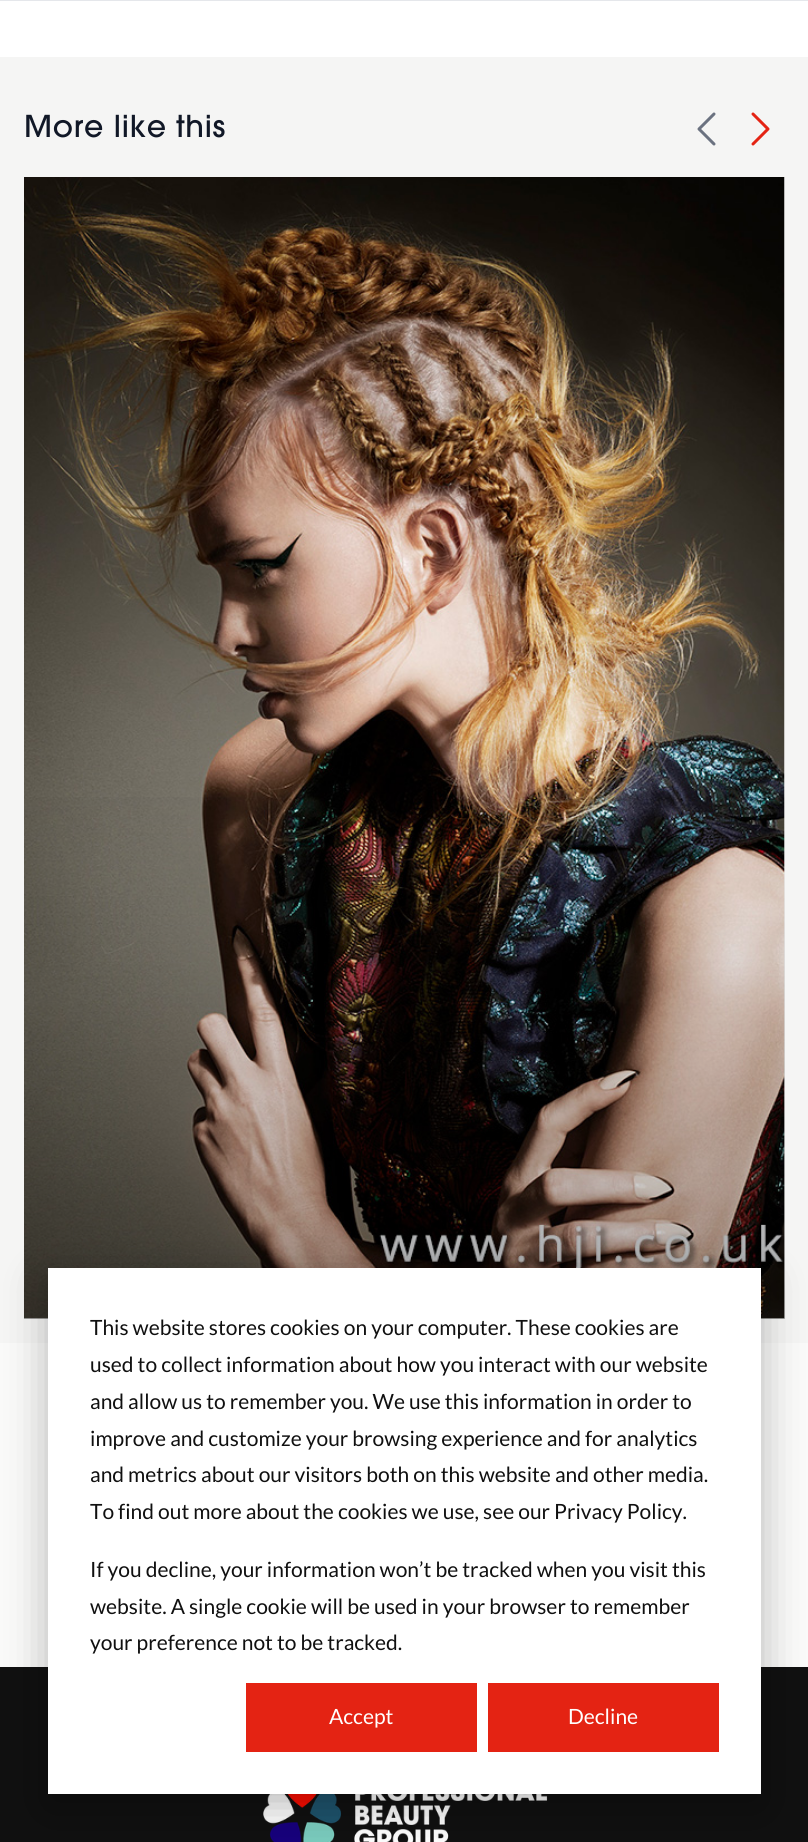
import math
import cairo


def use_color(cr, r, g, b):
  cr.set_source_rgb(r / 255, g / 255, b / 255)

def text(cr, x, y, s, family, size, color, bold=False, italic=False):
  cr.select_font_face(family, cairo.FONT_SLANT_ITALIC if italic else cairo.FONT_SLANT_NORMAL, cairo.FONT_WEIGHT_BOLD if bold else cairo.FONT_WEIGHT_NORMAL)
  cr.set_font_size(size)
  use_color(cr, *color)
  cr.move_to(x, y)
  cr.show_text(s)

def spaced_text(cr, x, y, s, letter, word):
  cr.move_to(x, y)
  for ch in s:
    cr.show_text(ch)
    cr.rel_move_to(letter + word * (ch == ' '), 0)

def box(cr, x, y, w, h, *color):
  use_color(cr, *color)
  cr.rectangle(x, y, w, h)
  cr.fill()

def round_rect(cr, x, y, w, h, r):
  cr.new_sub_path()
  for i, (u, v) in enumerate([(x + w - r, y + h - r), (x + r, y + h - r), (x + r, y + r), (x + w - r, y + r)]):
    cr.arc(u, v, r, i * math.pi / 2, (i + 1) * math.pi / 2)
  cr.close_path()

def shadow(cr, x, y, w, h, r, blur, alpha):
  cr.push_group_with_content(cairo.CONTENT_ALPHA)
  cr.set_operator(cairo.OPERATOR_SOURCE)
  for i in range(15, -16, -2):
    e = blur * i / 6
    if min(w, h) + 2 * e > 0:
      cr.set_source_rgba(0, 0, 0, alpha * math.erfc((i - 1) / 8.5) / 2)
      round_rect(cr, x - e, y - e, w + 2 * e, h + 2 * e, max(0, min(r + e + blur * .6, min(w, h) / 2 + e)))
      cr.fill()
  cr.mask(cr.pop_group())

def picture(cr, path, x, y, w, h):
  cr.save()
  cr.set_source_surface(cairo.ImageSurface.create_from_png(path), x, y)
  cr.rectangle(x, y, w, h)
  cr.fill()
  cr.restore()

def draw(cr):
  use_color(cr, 255, 255, 255)
  cr.paint()
  box(cr, 0, 0, 808, 1, 229, 231, 235)
  box(cr, 0, 57, 808, 1286, 245, 245, 244)
  cr.new_path()
  cr.move_to(714, 144)
  cr.line_to(699, 129)
  cr.line_to(714, 114)
  use_color(cr, 107, 114, 128)
  cr.set_line_width(3)
  cr.set_line_cap(cairo.LINE_CAP_ROUND)
  cr.set_line_join(cairo.LINE_JOIN_ROUND)
  cr.stroke()
  cr.new_path()
  cr.move_to(753, 114)
  cr.line_to(768, 129)
  cr.line_to(753, 144)
  use_color(cr, 228, 35, 19)
  cr.stroke()
  picture(cr, "img_01.png", 24, 177, 761, 1142)
  gradient = cairo.LinearGradient(404, 177, 404, 1319)
  gradient.add_color_stop_rgba(0, 0, 0, 0, 0)
  gradient.add_color_stop_rgba(0.5, 0, 0, 0, 0)
  gradient.add_color_stop_rgba(1, 0, 0, 0, 0.25)
  cr.set_source(gradient)
  cr.rectangle(24, 797, 761, 522)
  cr.fill()
  box(cr, 0, 1343, 808, 324, 250, 250, 249)
  box(cr, 0, 1667, 808, 175, 16, 16, 16)
  picture(cr, "img_02.png", 263, 1794, 285, 48)
  use_color(cr, 0, 0, 0)
  shadow(cr, 48, 1280, 713, 526, 0, 21, 0.28)
  box(cr, 48, 1268, 713, 526, 255, 255, 255)
  box(cr, 246, 1683, 231, 69, 228, 35, 19)
  box(cr, 488, 1683, 231, 69, 228, 35, 19)
  cr.select_font_face("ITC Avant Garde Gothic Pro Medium")
  cr.set_font_size(30)
  use_color(cr, 17, 24, 39)
  spaced_text(cr, 24, 137, "More like this", 0.75, 0)
  text(cr, 90, 1335, "This website stores cookies on your computer. These cookies are", "Lato", 21, (16, 16, 16))
  text(cr, 90, 1372, "used to collect information about how you interact with our website", "Lato", 21, (16, 16, 16))
  text(cr, 90, 1409, "and allow us to remember you. We use this information in order to", "Lato", 21, (16, 16, 16))
  text(cr, 90, 1446, "improve and customize your browsing experience and for analytics", "Lato", 21, (16, 16, 16))
  text(cr, 90, 1482, "and metrics about our visitors both on this website and other media.", "Lato", 21, (16, 16, 16))
  text(cr, 90, 1519, "To find out more about the cookies we use, see our Privacy Policy.", "Lato", 21, (16, 16, 16))
  text(cr, 90, 1577, "If you decline, your information won’t be tracked when you visit this", "Lato", 21, (16, 16, 16))
  text(cr, 90, 1614, "website. A single cookie will be used in your browser to remember", "Lato", 21, (16, 16, 16))
  text(cr, 90, 1650, "your preference not to be tracked.", "Lato", 21, (16, 16, 16))
  text(cr, 329, 1724, "Accept", "Lato", 21, (255, 255, 255))
  text(cr, 568, 1724, "Decline", "Lato", 21, (255, 255, 255))


surface = cairo.ImageSurface(cairo.FORMAT_RGB24, 808, 1842)
cr = cairo.Context(surface)
options = cairo.FontOptions()
options.set_hint_metrics(cairo.HINT_METRICS_OFF)
options.set_hint_style(cairo.HINT_STYLE_NONE)
cr.set_font_options(options)
cr.set_miter_limit(4)
draw(cr)
surface.write_to_png("out.png")
